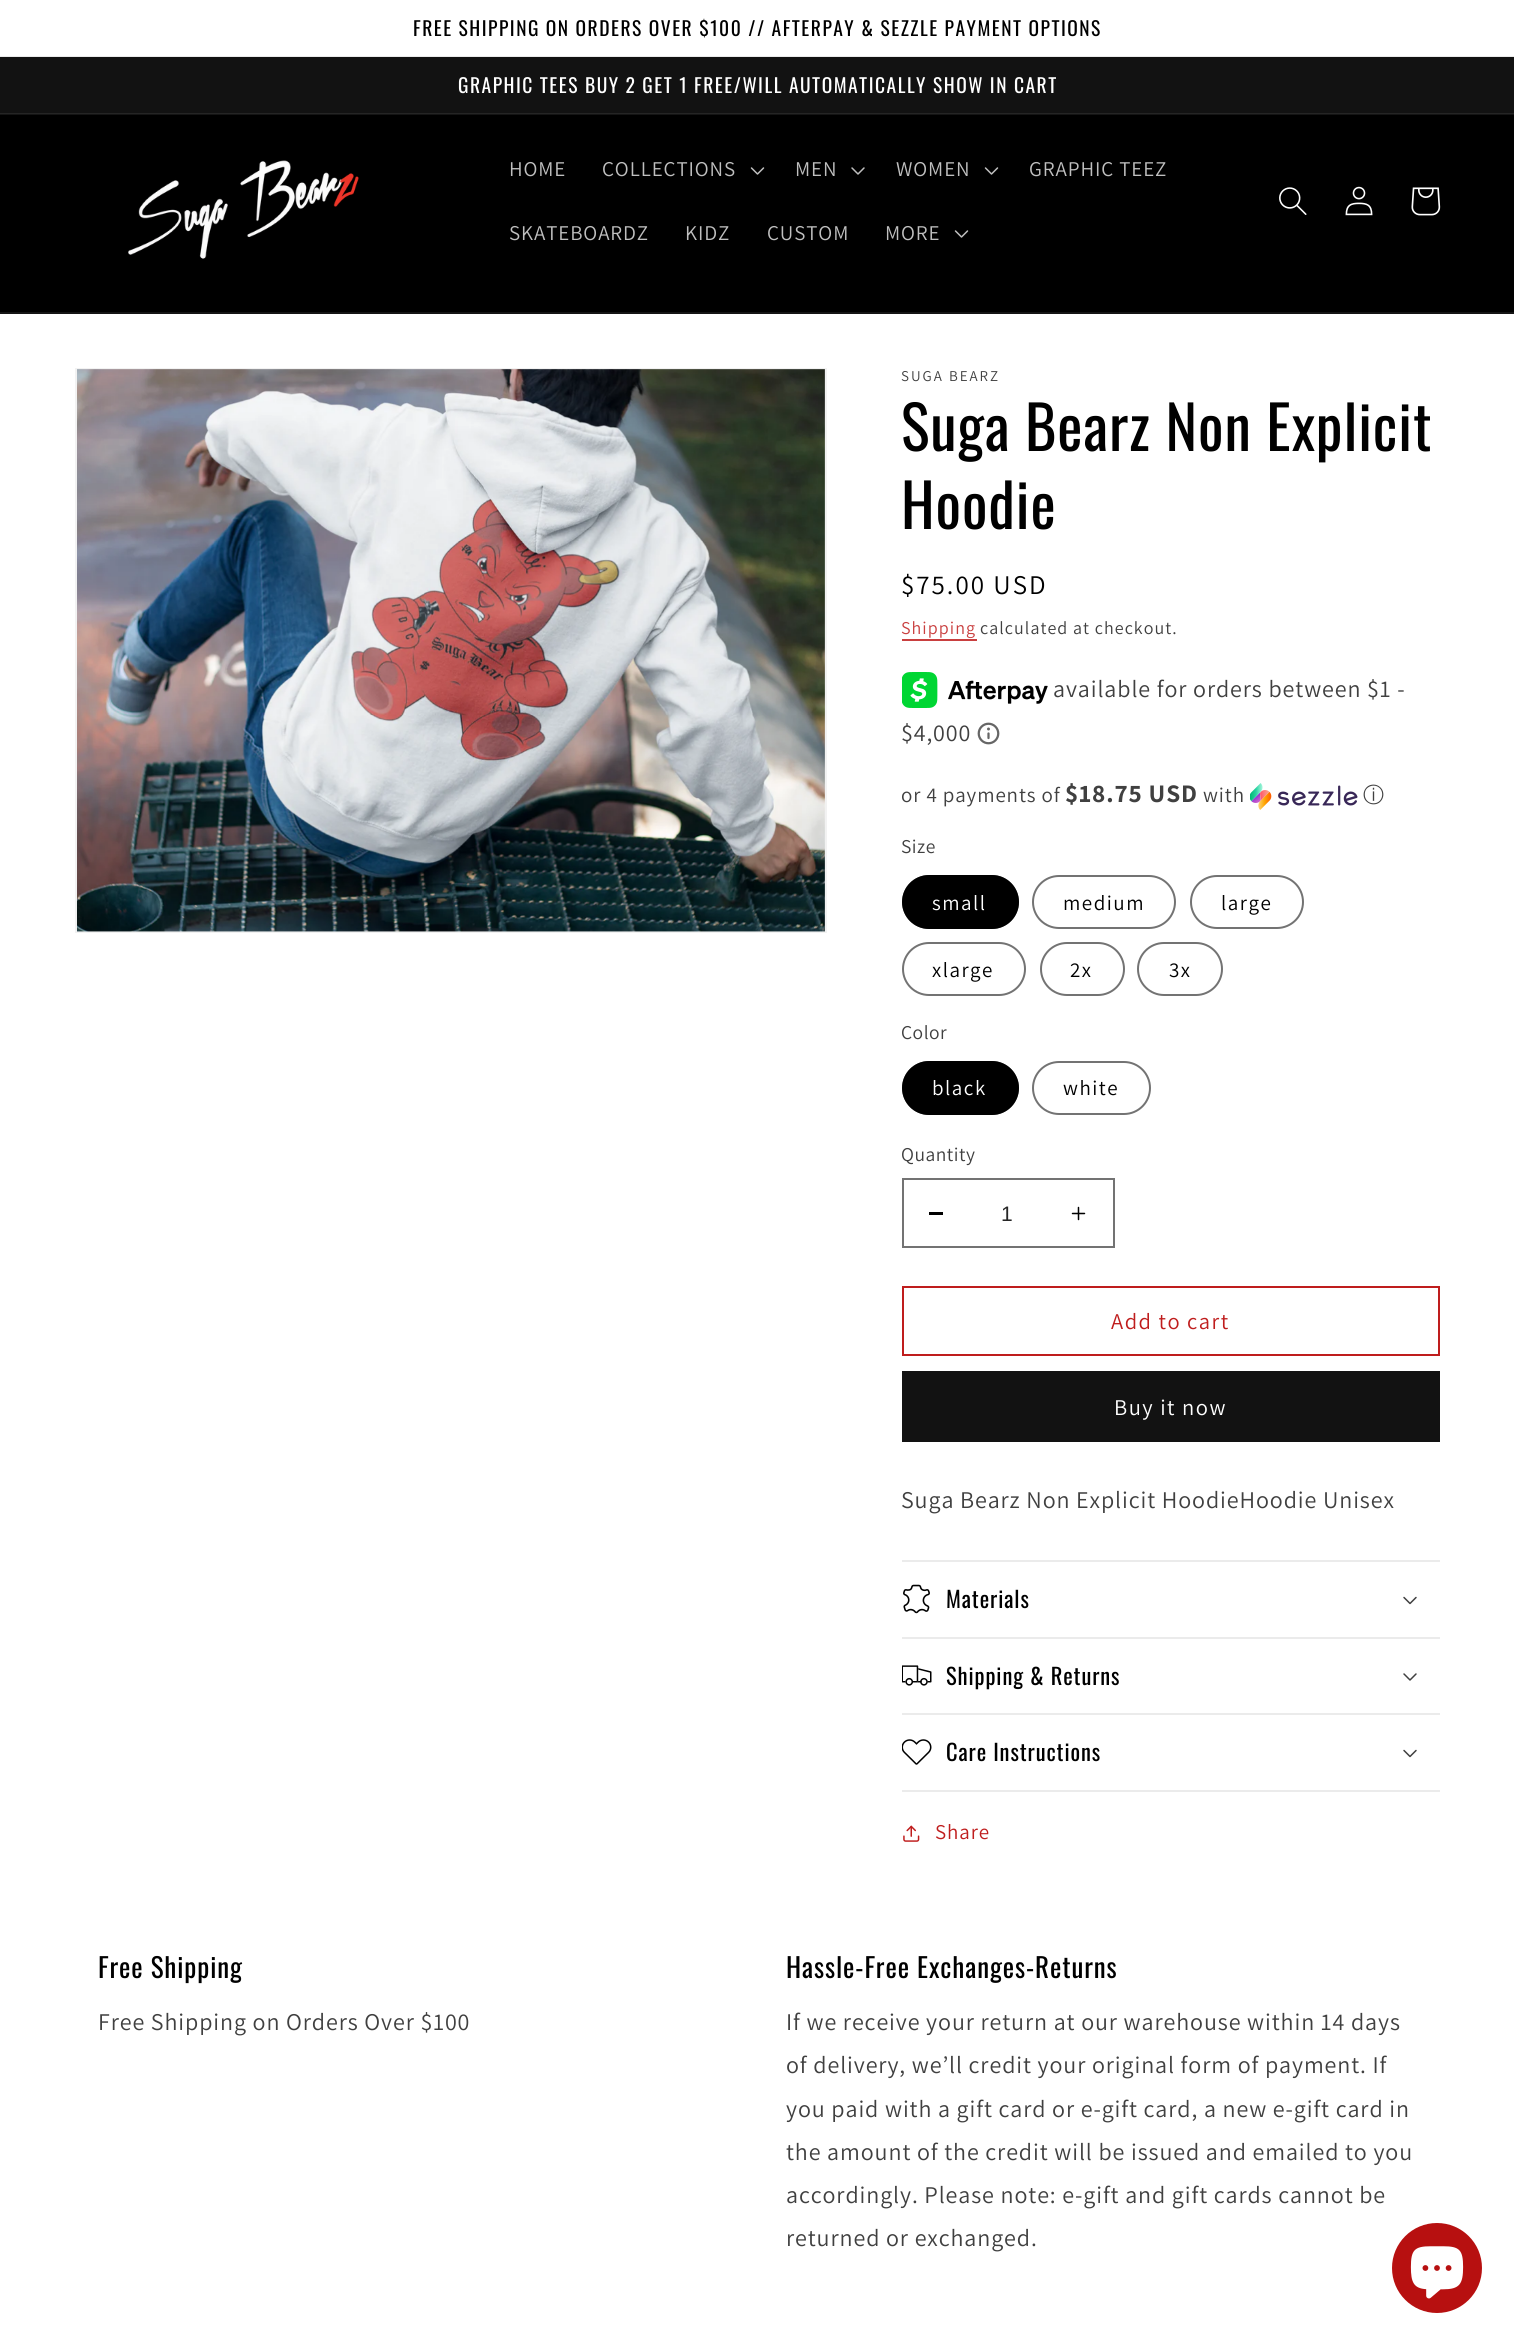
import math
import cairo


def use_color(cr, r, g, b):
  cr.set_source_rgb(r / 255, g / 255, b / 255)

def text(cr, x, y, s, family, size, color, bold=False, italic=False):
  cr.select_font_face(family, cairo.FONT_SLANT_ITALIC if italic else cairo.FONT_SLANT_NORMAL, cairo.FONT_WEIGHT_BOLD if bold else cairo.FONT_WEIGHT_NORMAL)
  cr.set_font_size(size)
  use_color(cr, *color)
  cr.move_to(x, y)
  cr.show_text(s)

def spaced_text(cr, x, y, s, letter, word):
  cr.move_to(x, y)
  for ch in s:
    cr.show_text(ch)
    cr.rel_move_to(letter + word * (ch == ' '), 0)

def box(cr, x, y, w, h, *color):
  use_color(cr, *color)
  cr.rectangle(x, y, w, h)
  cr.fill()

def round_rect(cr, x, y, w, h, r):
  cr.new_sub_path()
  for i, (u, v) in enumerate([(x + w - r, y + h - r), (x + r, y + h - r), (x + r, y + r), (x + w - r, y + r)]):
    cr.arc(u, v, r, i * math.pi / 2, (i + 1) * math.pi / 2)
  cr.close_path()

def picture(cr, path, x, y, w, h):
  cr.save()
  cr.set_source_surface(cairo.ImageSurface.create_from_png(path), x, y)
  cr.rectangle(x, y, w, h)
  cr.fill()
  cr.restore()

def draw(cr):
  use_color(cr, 255, 255, 255)
  cr.paint()
  box(cr, 0, 56, 1514, 1, 235, 235, 235)
  box(cr, 0, 57, 1514, 56, 18, 18, 18)
  box(cr, 0, 113, 1514, 1, 37, 37, 37)
  box(cr, 0, 115, 1514, 197, 0, 0, 0)
  box(cr, 0, 114, 1514, 1, 20, 20, 20)
  box(cr, 0, 312, 1514, 2, 20, 20, 20)
  picture(cr, "img_01.png", 128, 160, 231, 99)
  picture(cr, "img_02.png", 750, 167, 15, 8)
  picture(cr, "img_03.png", 851, 167, 14, 8)
  picture(cr, "img_02.png", 984, 167, 15, 8)
  picture(cr, "img_02.png", 954, 230, 15, 8)
  picture(cr, "img_04.png", 1279, 187, 28, 28)
  picture(cr, "img_05.png", 1345, 186, 28, 30)
  picture(cr, "img_06.png", 1411, 187, 30, 29)
  cr.rectangle(76, 369, 750, 563)
  use_color(cr, 242, 242, 242)
  cr.stroke()
  picture(cr, "img_07.png", 77, 369, 748, 563)
  box(cr, 902, 639, 75, 2, 201, 63, 63)
  picture(cr, "img_08.png", 902, 672, 146, 36)
  picture(cr, "img_09.png", 977, 722, 23, 23)
  picture(cr, "img_10.png", 1250, 783, 108, 27)
  use_color(cr, 0, 0, 0)
  round_rect(cr, 902, 875, 117, 54, 27)
  cr.fill()
  round_rect(cr, 903, 876, 115, 52, 26)
  cr.set_source_rgba(0, 0, 0, 0.55)
  cr.stroke()
  round_rect(cr, 1033, 876, 142, 52, 26)
  use_color(cr, 115, 115, 115)
  cr.stroke()
  round_rect(cr, 1191, 876, 112, 52, 26)
  cr.stroke()
  round_rect(cr, 903, 943, 122, 52, 26)
  cr.stroke()
  round_rect(cr, 1041, 943, 83, 52, 26)
  cr.stroke()
  round_rect(cr, 1138, 943, 84, 52, 26)
  cr.stroke()
  use_color(cr, 0, 0, 0)
  round_rect(cr, 902, 1061, 117, 54, 27)
  cr.fill()
  round_rect(cr, 903, 1062, 115, 52, 26)
  cr.set_source_rgba(0, 0, 0, 0.55)
  cr.stroke()
  round_rect(cr, 1033, 1062, 117, 52, 26)
  use_color(cr, 115, 115, 115)
  cr.stroke()
  box(cr, 929, 1212, 14, 3, 0, 0, 0)
  picture(cr, "img_11.png", 1071, 1206, 15, 15)
  cr.rectangle(903, 1179, 211, 68)
  use_color(cr, 115, 115, 115)
  cr.stroke()
  cr.rectangle(903, 1287, 536, 68)
  use_color(cr, 191, 29, 29)
  cr.stroke()
  box(cr, 902, 1371, 538, 71, 18, 18, 18)
  box(cr, 902, 1560, 538, 2, 235, 235, 235)
  box(cr, 902, 1637, 538, 2, 235, 235, 235)
  picture(cr, "img_12.png", 903, 1584, 27, 30)
  picture(cr, "img_13.png", 1403, 1596, 14, 9)
  box(cr, 902, 1713, 538, 2, 235, 235, 235)
  picture(cr, "img_14.png", 902, 1665, 30, 21)
  picture(cr, "img_15.png", 1403, 1673, 14, 8)
  box(cr, 902, 1790, 538, 2, 235, 235, 235)
  picture(cr, "img_16.png", 902, 1739, 30, 26)
  picture(cr, "img_13.png", 1403, 1749, 14, 9)
  picture(cr, "img_17.png", 903, 1825, 17, 17)
  use_color(cr, 183, 16, 16)
  cr.arc(1437, 2268, 45, 0, 2 * math.pi)
  cr.fill()
  picture(cr, "img_18.png", 1410, 2246, 54, 53)
  cr.select_font_face("Oswald")
  cr.set_font_size(19.5)
  use_color(cr, 0, 0, 0)
  spaced_text(cr, 413, 36, "FREE SHIPPING ON ORDERS OVER $100 // AFTERPAY & SEZZLE PAYMENT OPTIONS", 1.5, 0)
  use_color(cr, 255, 255, 255)
  spaced_text(cr, 458, 93, "GRAPHIC TEES BUY 2 GET 1 FREE/WILL AUTOMATICALLY SHOW IN CART", 1.5, 0)
  cr.select_font_face("Assistant")
  cr.set_font_size(21)
  use_color(cr, 191, 191, 191)
  spaced_text(cr, 509, 176, "HOME", 0.9, 0)
  spaced_text(cr, 602, 176, "COLLECTIONS", 0.9, 0)
  spaced_text(cr, 795, 176, "MEN", 0.9, 0)
  spaced_text(cr, 896, 176, "WOMEN", 0.9, 0)
  spaced_text(cr, 1029, 176, "GRAPHIC TEEZ", 0.9, 0)
  spaced_text(cr, 509, 240, "SKATEBOARDZ", 0.9, 0)
  spaced_text(cr, 685, 240, "KIDZ", 0.9, 0)
  spaced_text(cr, 767, 240, "CUSTOM", 0.9, 0)
  spaced_text(cr, 885, 240, "MORE", 0.9, 0)
  cr.set_font_size(15)
  use_color(cr, 64, 64, 64)
  spaced_text(cr, 901, 381, "SUGA BEARZ", 2, 0)
  cr.select_font_face("Oswald")
  cr.set_font_size(60)
  use_color(cr, 0, 0, 0)
  spaced_text(cr, 901, 451, "Suga Bearz Non Explicit", 0.9, 0)
  spaced_text(cr, 901, 529, "Hoodie", 0.9, 0)
  cr.select_font_face("Assistant")
  cr.set_font_size(27)
  spaced_text(cr, 901, 594, "$75.00 USD", 2, 0)
  cr.set_font_size(18)
  use_color(cr, 201, 63, 63)
  spaced_text(cr, 901, 634, "Shipping", 1.05, 0)
  use_color(cr, 64, 64, 64)
  spaced_text(cr, 980, 634, "calculated at checkout.", 1.05, 0)
  cr.set_font_size(24)
  spaced_text(cr, 1053, 697, "available for orders between $1 -", 0.9, 0)
  spaced_text(cr, 901, 741, "$4,000", 0.9, 0)
  cr.save()
  cr.rectangle(902, 780, 538, 30)
  cr.clip()
  cr.set_font_size(21)
  spaced_text(cr, 901, 802, "or 4 payments of", 0.9, 0)
  cr.restore()
  cr.select_font_face("Assistant", cairo.FONT_SLANT_NORMAL, cairo.FONT_WEIGHT_BOLD)
  cr.set_font_size(25.25)
  spaced_text(cr, 1065, 802, "$18.75 USD", 0.9, 0)
  cr.select_font_face("Assistant")
  cr.set_font_size(21)
  spaced_text(cr, 1203, 802, "with", 0.9, 0)
  cr.select_font_face("WenQuanYi Zen Hei Medium")
  spaced_text(cr, 1363, 802, "ⓘ", 0.9, 0)
  cr.select_font_face("Assistant")
  cr.set_font_size(19.5)
  spaced_text(cr, 901, 853, "Size", 0.5, 0)
  cr.set_font_size(21)
  use_color(cr, 255, 255, 255)
  spaced_text(cr, 932, 910, "small", 1.5, 0)
  use_color(cr, 0, 0, 0)
  spaced_text(cr, 1063, 910, "medium", 1.5, 0)
  spaced_text(cr, 1221, 910, "large", 1.5, 0)
  spaced_text(cr, 932, 977, "xlarge", 1.5, 0)
  spaced_text(cr, 1070, 977, "2x", 1.5, 0)
  spaced_text(cr, 1169, 977, "3x", 1.5, 0)
  cr.set_font_size(19.5)
  use_color(cr, 64, 64, 64)
  spaced_text(cr, 901, 1039, "Color", 0.5, 0)
  cr.set_font_size(21)
  use_color(cr, 255, 255, 255)
  spaced_text(cr, 932, 1095, "black", 1.5, 0)
  use_color(cr, 0, 0, 0)
  spaced_text(cr, 1063, 1095, "white", 1.5, 0)
  cr.set_font_size(19.5)
  use_color(cr, 64, 64, 64)
  spaced_text(cr, 901, 1161, "Quantity", 0.5, 0)
  text(cr, 1001, 1221, "1", "Liberation Sans", 21, (38, 38, 38))
  cr.select_font_face("Assistant")
  cr.set_font_size(22.5)
  use_color(cr, 191, 29, 29)
  spaced_text(cr, 1111, 1329, "Add to cart", 1.5, 0)
  use_color(cr, 255, 255, 255)
  spaced_text(cr, 1114, 1415, "Buy it now", 1.5, 0)
  cr.set_font_size(24)
  use_color(cr, 64, 64, 64)
  spaced_text(cr, 901, 1508, "Suga Bearz Non Explicit HoodieHoodie Unisex", 0.9, 0)
  cr.select_font_face("Oswald")
  cr.set_font_size(22.5)
  use_color(cr, 0, 0, 0)
  spaced_text(cr, 946, 1608, "Materials", 0.9, 0)
  spaced_text(cr, 946, 1685, "Shipping & Returns", 0.9, 0)
  spaced_text(cr, 946, 1761, "Care Instructions", 0.9, 0)
  cr.select_font_face("Assistant")
  cr.set_font_size(21)
  use_color(cr, 191, 29, 29)
  spaced_text(cr, 935, 1839, "Share", 0.9, 0)
  cr.select_font_face("Oswald")
  cr.set_font_size(27)
  use_color(cr, 0, 0, 0)
  spaced_text(cr, 98, 1978, "Free Shipping", 0.9, 0)
  cr.select_font_face("Assistant")
  cr.set_font_size(24)
  use_color(cr, 64, 64, 64)
  spaced_text(cr, 98, 2030, "Free Shipping on Orders Over $100", 0.9, 0)
  cr.select_font_face("Oswald")
  cr.set_font_size(27)
  use_color(cr, 0, 0, 0)
  spaced_text(cr, 786, 1978, "Hassle-Free Exchanges-Returns", 0.9, 0)
  cr.select_font_face("Assistant")
  cr.set_font_size(24)
  use_color(cr, 64, 64, 64)
  spaced_text(cr, 786, 2030, "If we receive your return at our warehouse within 14 days", 0.9, 0)
  spaced_text(cr, 786, 2073, "of delivery, we’ll credit your original form of payment. If", 0.9, 0)
  spaced_text(cr, 786, 2117, "you paid with a gift card or e-gift card, a new e-gift card in", 0.9, 0)
  spaced_text(cr, 786, 2160, "the amount of the credit will be issued and emailed to you", 0.9, 0)
  spaced_text(cr, 786, 2203, "accordingly. Please note: e-gift and gift cards cannot be", 0.9, 0)
  spaced_text(cr, 786, 2246, "returned or exchanged.", 0.9, 0)


surface = cairo.ImageSurface(cairo.FORMAT_RGB24, 1514, 2344)
cr = cairo.Context(surface)
options = cairo.FontOptions()
options.set_hint_metrics(cairo.HINT_METRICS_OFF)
options.set_hint_style(cairo.HINT_STYLE_NONE)
cr.set_font_options(options)
cr.set_miter_limit(4)
draw(cr)
surface.write_to_png("out.png")
